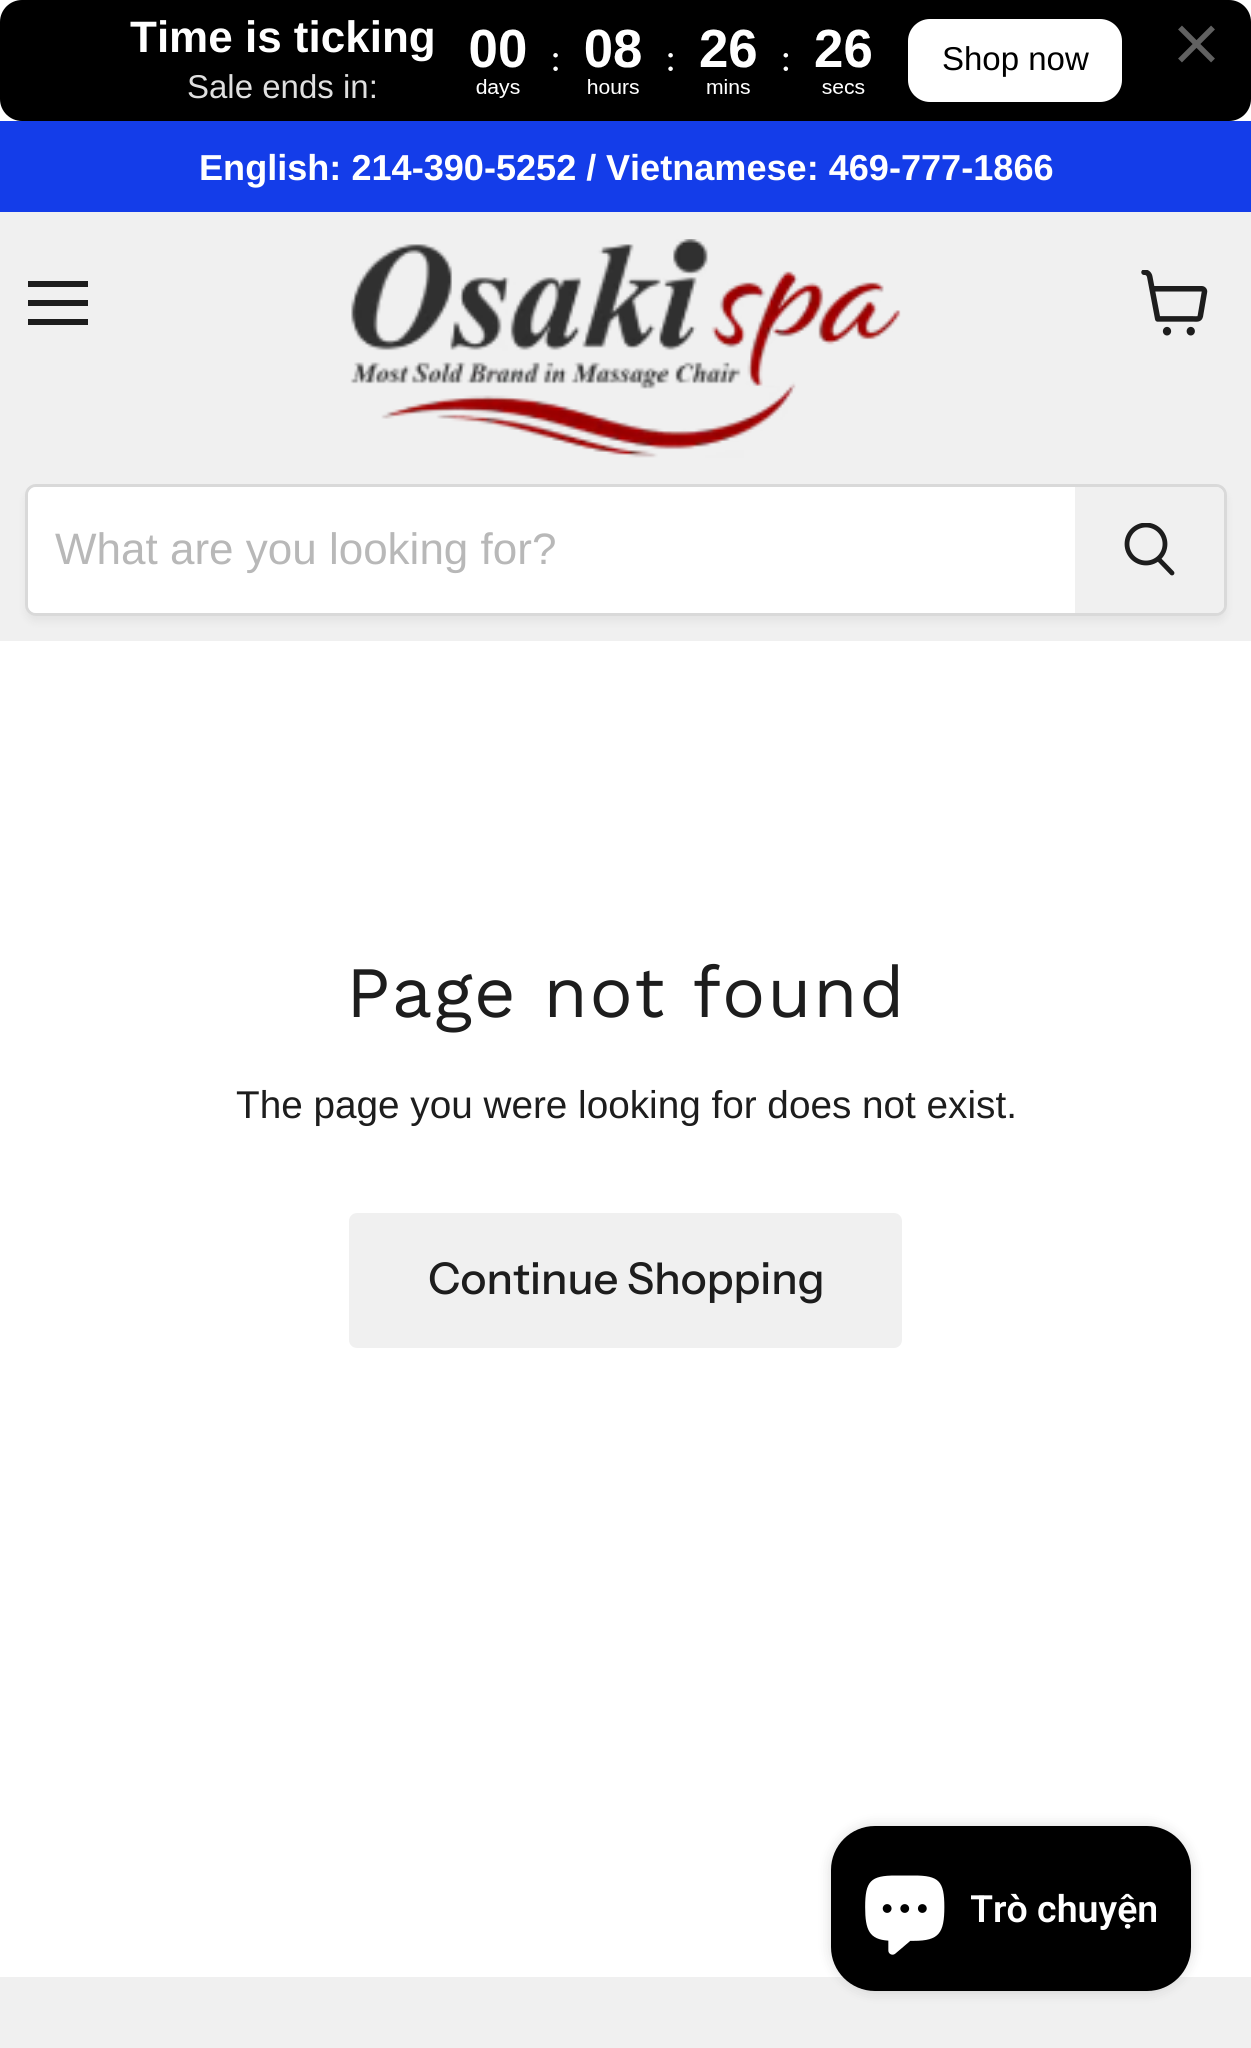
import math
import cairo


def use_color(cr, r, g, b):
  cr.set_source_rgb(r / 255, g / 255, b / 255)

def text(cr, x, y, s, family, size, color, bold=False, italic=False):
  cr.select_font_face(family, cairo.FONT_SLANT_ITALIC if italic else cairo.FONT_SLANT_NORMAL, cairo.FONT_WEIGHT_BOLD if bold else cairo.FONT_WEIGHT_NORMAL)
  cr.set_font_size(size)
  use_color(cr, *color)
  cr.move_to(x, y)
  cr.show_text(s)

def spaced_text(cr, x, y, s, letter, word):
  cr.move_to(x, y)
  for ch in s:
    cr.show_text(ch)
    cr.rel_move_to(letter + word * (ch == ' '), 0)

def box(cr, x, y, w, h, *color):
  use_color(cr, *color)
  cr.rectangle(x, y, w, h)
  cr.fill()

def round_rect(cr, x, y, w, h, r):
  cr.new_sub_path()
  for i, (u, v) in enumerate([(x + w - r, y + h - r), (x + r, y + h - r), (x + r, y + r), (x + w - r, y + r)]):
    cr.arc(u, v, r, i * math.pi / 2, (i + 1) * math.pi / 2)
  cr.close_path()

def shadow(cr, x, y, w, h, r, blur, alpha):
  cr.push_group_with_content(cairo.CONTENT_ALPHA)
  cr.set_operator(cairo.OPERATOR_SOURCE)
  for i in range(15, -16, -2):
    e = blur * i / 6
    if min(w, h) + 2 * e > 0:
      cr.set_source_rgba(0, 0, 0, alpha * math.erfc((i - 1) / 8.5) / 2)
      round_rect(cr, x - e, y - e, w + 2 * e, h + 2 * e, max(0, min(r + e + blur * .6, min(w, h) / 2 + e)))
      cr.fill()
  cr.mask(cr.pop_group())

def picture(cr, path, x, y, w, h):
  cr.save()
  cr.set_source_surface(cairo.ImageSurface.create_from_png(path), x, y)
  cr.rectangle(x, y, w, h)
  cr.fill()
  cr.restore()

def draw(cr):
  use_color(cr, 255, 255, 255)
  cr.paint()
  use_color(cr, 0, 0, 0)
  round_rect(cr, 0, 0, 1251, 121, 22)
  cr.fill()
  picture(cr, "img_01.png", 470, 29, 401, 69)
  use_color(cr, 255, 255, 255)
  round_rect(cr, 908, 19, 214, 83, 22)
  cr.fill()
  cr.new_path()
  cr.move_to(1213, 27.5)
  cr.line_to(1180, 60.5)
  cr.move_to(1213, 60.5)
  cr.line_to(1180, 27.5)
  use_color(cr, 97, 97, 97)
  cr.set_line_width(5.5)
  cr.stroke()
  box(cr, 0, 121, 1251, 91, 20, 61, 233)
  box(cr, 0, 212, 1251, 429, 240, 240, 240)
  box(cr, 28, 281, 60, 6, 29, 29, 29)
  box(cr, 28, 300, 60, 6, 29, 29, 29)
  box(cr, 28, 319, 60, 6, 29, 29, 29)
  picture(cr, "img_02.png", 1141, 270, 67, 66)
  picture(cr, "img_03.png", 350, 239, 551, 219)
  cr.save()
  cr.set_fill_rule(cairo.FILL_RULE_EVEN_ODD)
  cr.new_path()
  cr.move_to(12, 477)
  cr.line_to(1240, 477)
  cr.line_to(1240, 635)
  cr.line_to(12, 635)
  cr.close_path()
  cr.move_to(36, 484)
  cr.line_to(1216, 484)
  cr.curve_to(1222, 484, 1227, 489, 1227, 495)
  cr.line_to(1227, 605)
  cr.curve_to(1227, 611, 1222, 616, 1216, 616)
  cr.line_to(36, 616)
  cr.curve_to(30, 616, 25, 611, 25, 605)
  cr.line_to(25, 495)
  cr.curve_to(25, 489, 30, 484, 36, 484)
  cr.close_path()
  cr.clip()
  use_color(cr, 128, 128, 128)
  shadow(cr, 25, 490, 1202, 132, 11, 4, 0.11)
  cr.restore()
  round_rect(cr, 26.5, 485.5, 1199, 129, 9.5)
  cr.set_source_rgba(0.502, 0.502, 0.502, 0.2)
  cr.set_line_width(3)
  cr.stroke()
  use_color(cr, 255, 255, 255)
  cr.new_path()
  cr.move_to(36, 487)
  cr.line_to(1075, 487)
  cr.line_to(1075, 613)
  cr.line_to(36, 613)
  cr.curve_to(31.5, 613, 28, 609.5, 28, 605)
  cr.line_to(28, 495)
  cr.curve_to(28, 490.5, 31.5, 487, 36, 487)
  cr.close_path()
  cr.fill()
  use_color(cr, 240, 240, 240)
  cr.new_path()
  cr.move_to(1076.5, 488.5)
  cr.line_to(1216, 488.5)
  cr.curve_to(1219.5, 488.5, 1222.5, 491.5, 1222.5, 495)
  cr.line_to(1222.5, 605)
  cr.curve_to(1222.5, 608.5, 1219.5, 611.5, 1216, 611.5)
  cr.line_to(1076.5, 611.5)
  cr.close_path()
  cr.fill_preserve()
  cr.stroke()
  cr.new_path()
  cr.move_to(1172, 573)
  cr.line_to(1159, 559.5)
  use_color(cr, 29, 29, 29)
  cr.set_line_width(4.8)
  cr.set_line_cap(cairo.LINE_CAP_ROUND)
  cr.stroke()
  cr.save()
  cr.rectangle(1122, 523, 55, 57)
  cr.clip()
  cr.arc(1146, 544, 19, 0, 2 * math.pi)
  cr.set_line_cap(cairo.LINE_CAP_BUTT)
  cr.stroke()
  cr.restore()
  use_color(cr, 240, 240, 240)
  round_rect(cr, 350.5, 1214.5, 550, 132, 6.5)
  cr.fill_preserve()
  cr.set_line_width(3)
  cr.set_line_cap(cairo.LINE_CAP_BUTT)
  cr.stroke()
  box(cr, 0, 1977, 1251, 71, 240, 240, 240)
  use_color(cr, 0, 0, 0)
  shadow(cr, 831, 1826, 360, 165, 44, 7, 0.15)
  use_color(cr, 0, 0, 0)
  round_rect(cr, 831, 1826, 360, 165, 44)
  cr.fill()
  picture(cr, "img_04.png", 865, 1875, 80, 80)
  text(cr, 130, 52, "Time is ticking", "Liberation Sans", 44, (255, 255, 255), bold=True)
  text(cr, 187, 98, "Sale ends in:", "Liberation Sans", 33, (224, 224, 224))
  text(cr, 942, 70, "Shop now", "Liberation Sans", 33, (0, 0, 0))
  text(cr, 199, 180, "English: 214-390-5252 /", "Liberation Sans", 36.1, (255, 255, 255), bold=True)
  text(cr, 606, 180, "Vietnamese: 469-777-1866", "Liberation Sans", 36.1, (255, 255, 255), bold=True)
  text(cr, 55, 564, "What are you looking for?", "Liberation Sans", 44, (184, 184, 184))
  cr.select_font_face("Work Sans")
  cr.set_font_size(72.25)
  use_color(cr, 29, 29, 29)
  spaced_text(cr, 346, 1017, "Page not found", 1.5, 0)
  text(cr, 236, 1118, "The page you were looking for does not exist.", "Liberation Sans", 38.7, (29, 29, 29))
  text(cr, 428, 1294, "Continue Shopping", "Instrument Sans Medium", 43.75, (29, 29, 29))
  cr.save()
  cr.rectangle(971, 1867, 187, 83)
  cr.clip()
  text(cr, 970, 1922, "Trò chuyện", "Roboto SemiBold", 37.5, (255, 255, 255))
  cr.restore()


surface = cairo.ImageSurface(cairo.FORMAT_RGB24, 1251, 2048)
cr = cairo.Context(surface)
options = cairo.FontOptions()
options.set_hint_metrics(cairo.HINT_METRICS_OFF)
options.set_hint_style(cairo.HINT_STYLE_NONE)
cr.set_font_options(options)
cr.set_miter_limit(4)
draw(cr)
surface.write_to_png("out.png")
